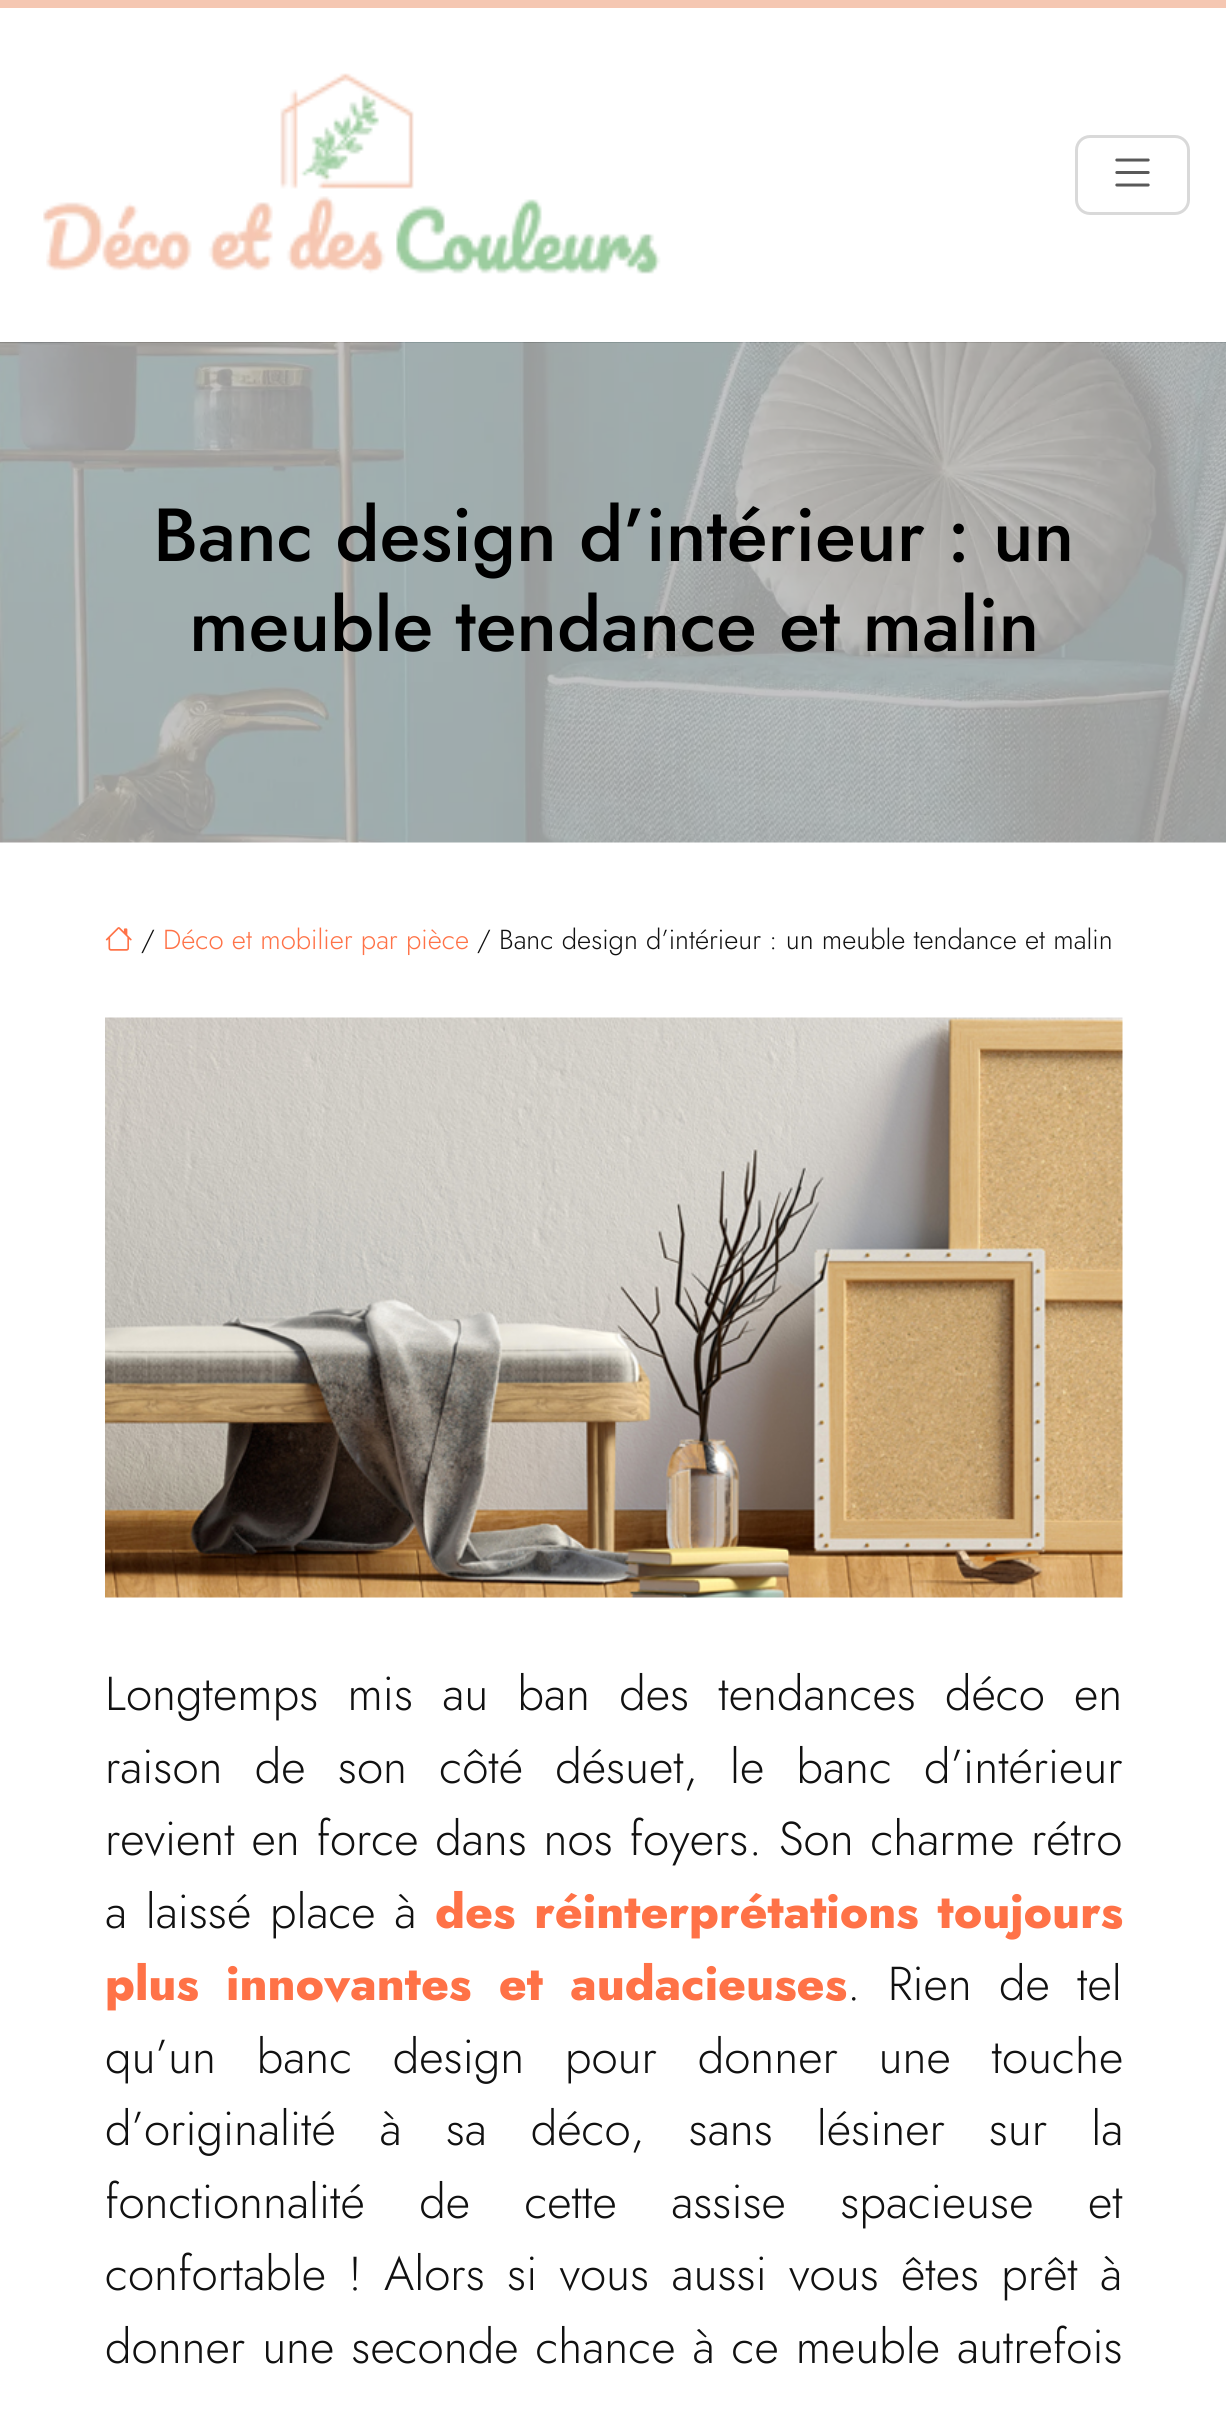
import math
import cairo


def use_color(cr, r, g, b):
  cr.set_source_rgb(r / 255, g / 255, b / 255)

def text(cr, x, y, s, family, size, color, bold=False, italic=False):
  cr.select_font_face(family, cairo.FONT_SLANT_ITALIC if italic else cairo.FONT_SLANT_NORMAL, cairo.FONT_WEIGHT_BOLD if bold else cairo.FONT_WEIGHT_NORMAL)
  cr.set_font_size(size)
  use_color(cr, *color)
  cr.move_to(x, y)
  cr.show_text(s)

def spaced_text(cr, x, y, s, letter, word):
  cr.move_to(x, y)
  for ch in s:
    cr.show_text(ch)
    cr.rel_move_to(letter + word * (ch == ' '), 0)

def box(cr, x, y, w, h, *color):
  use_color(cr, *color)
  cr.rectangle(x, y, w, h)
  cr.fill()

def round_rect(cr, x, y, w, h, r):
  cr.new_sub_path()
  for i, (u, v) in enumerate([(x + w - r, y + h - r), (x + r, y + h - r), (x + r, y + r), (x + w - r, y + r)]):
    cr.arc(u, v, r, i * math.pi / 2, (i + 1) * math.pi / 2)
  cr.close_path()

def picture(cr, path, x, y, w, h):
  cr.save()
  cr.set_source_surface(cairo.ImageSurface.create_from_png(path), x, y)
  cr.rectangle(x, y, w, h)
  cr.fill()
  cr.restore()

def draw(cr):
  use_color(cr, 255, 255, 255)
  cr.paint()
  box(cr, 0, 0, 1226, 8, 245, 199, 178)
  picture(cr, "img_01.png", 43, 73, 618, 201)
  round_rect(cr, 1076.5, 136.5, 112, 77, 13.5)
  use_color(cr, 217, 217, 217)
  cr.set_line_width(3)
  cr.stroke()
  picture(cr, "img_02.png", 1115, 158, 35, 29)
  picture(cr, "img_03.png", 0, 342, 1226, 501)
  picture(cr, "img_04.png", 105, 927, 27, 24)
  picture(cr, "img_05.png", 105, 1017, 1018, 581)
  text(cr, 153, 561, "Banc design d’intérieur : un", "Jost Medium", 75, (0, 0, 0))
  text(cr, 189, 651, "meuble tendance et malin", "Jost Medium", 75, (0, 0, 0))
  text(cr, 141, 949, "/", "Jost Light", 27.5, (17, 17, 17))
  text(cr, 163, 949, "Déco et mobilier par pièce", "Jost Light", 27.5, (255, 114, 71))
  text(cr, 477, 949, "/ Banc design d’intérieur : un meuble tendance et malin", "Jost Light", 27.5, (17, 17, 17))
  cr.set_font_size(47.5)
  spaced_text(cr, 105, 1710, "Longtemps mis au ban des tendances déco en", 0, 15)
  spaced_text(cr, 105, 1783, "raison de son côté désuet, le banc d’intérieur", 0, 18)
  spaced_text(cr, 105, 1855, "revient en force dans nos foyers. Son charme rétro", 0, 2.5)
  spaced_text(cr, 105, 1928, "a laissé place à", 0, 4.5)
  cr.select_font_face("Jost ExtraBold")
  use_color(cr, 255, 114, 71)
  spaced_text(cr, 435, 1928, "des réinterprétations toujours", 0, 4.5)
  spaced_text(cr, 105, 2000, "plus innovantes et audacieuses", 0, 13)
  cr.select_font_face("Jost Light")
  use_color(cr, 17, 17, 17)
  spaced_text(cr, 847, 2000, ". Rien de tel", 0, 13)
  spaced_text(cr, 105, 2073, "qu’un banc design pour donner une touche", 0, 26.5)
  spaced_text(cr, 105, 2145, "d’originalité à sa déco, sans lésiner sur la", 0, 29.75)
  spaced_text(cr, 105, 2218, "fonctionnalité de cette assise spacieuse et", 0, 40.25)
  spaced_text(cr, 105, 2290, "confortable ! Alors si vous aussi vous êtes prêt à", 0, 8)
  spaced_text(cr, 105, 2363, "donner une seconde chance à ce meuble autrefois", 0, 2.75)


surface = cairo.ImageSurface(cairo.FORMAT_RGB24, 1226, 2409)
cr = cairo.Context(surface)
options = cairo.FontOptions()
options.set_hint_metrics(cairo.HINT_METRICS_OFF)
options.set_hint_style(cairo.HINT_STYLE_NONE)
cr.set_font_options(options)
cr.set_miter_limit(4)
draw(cr)
surface.write_to_png("out.png")
